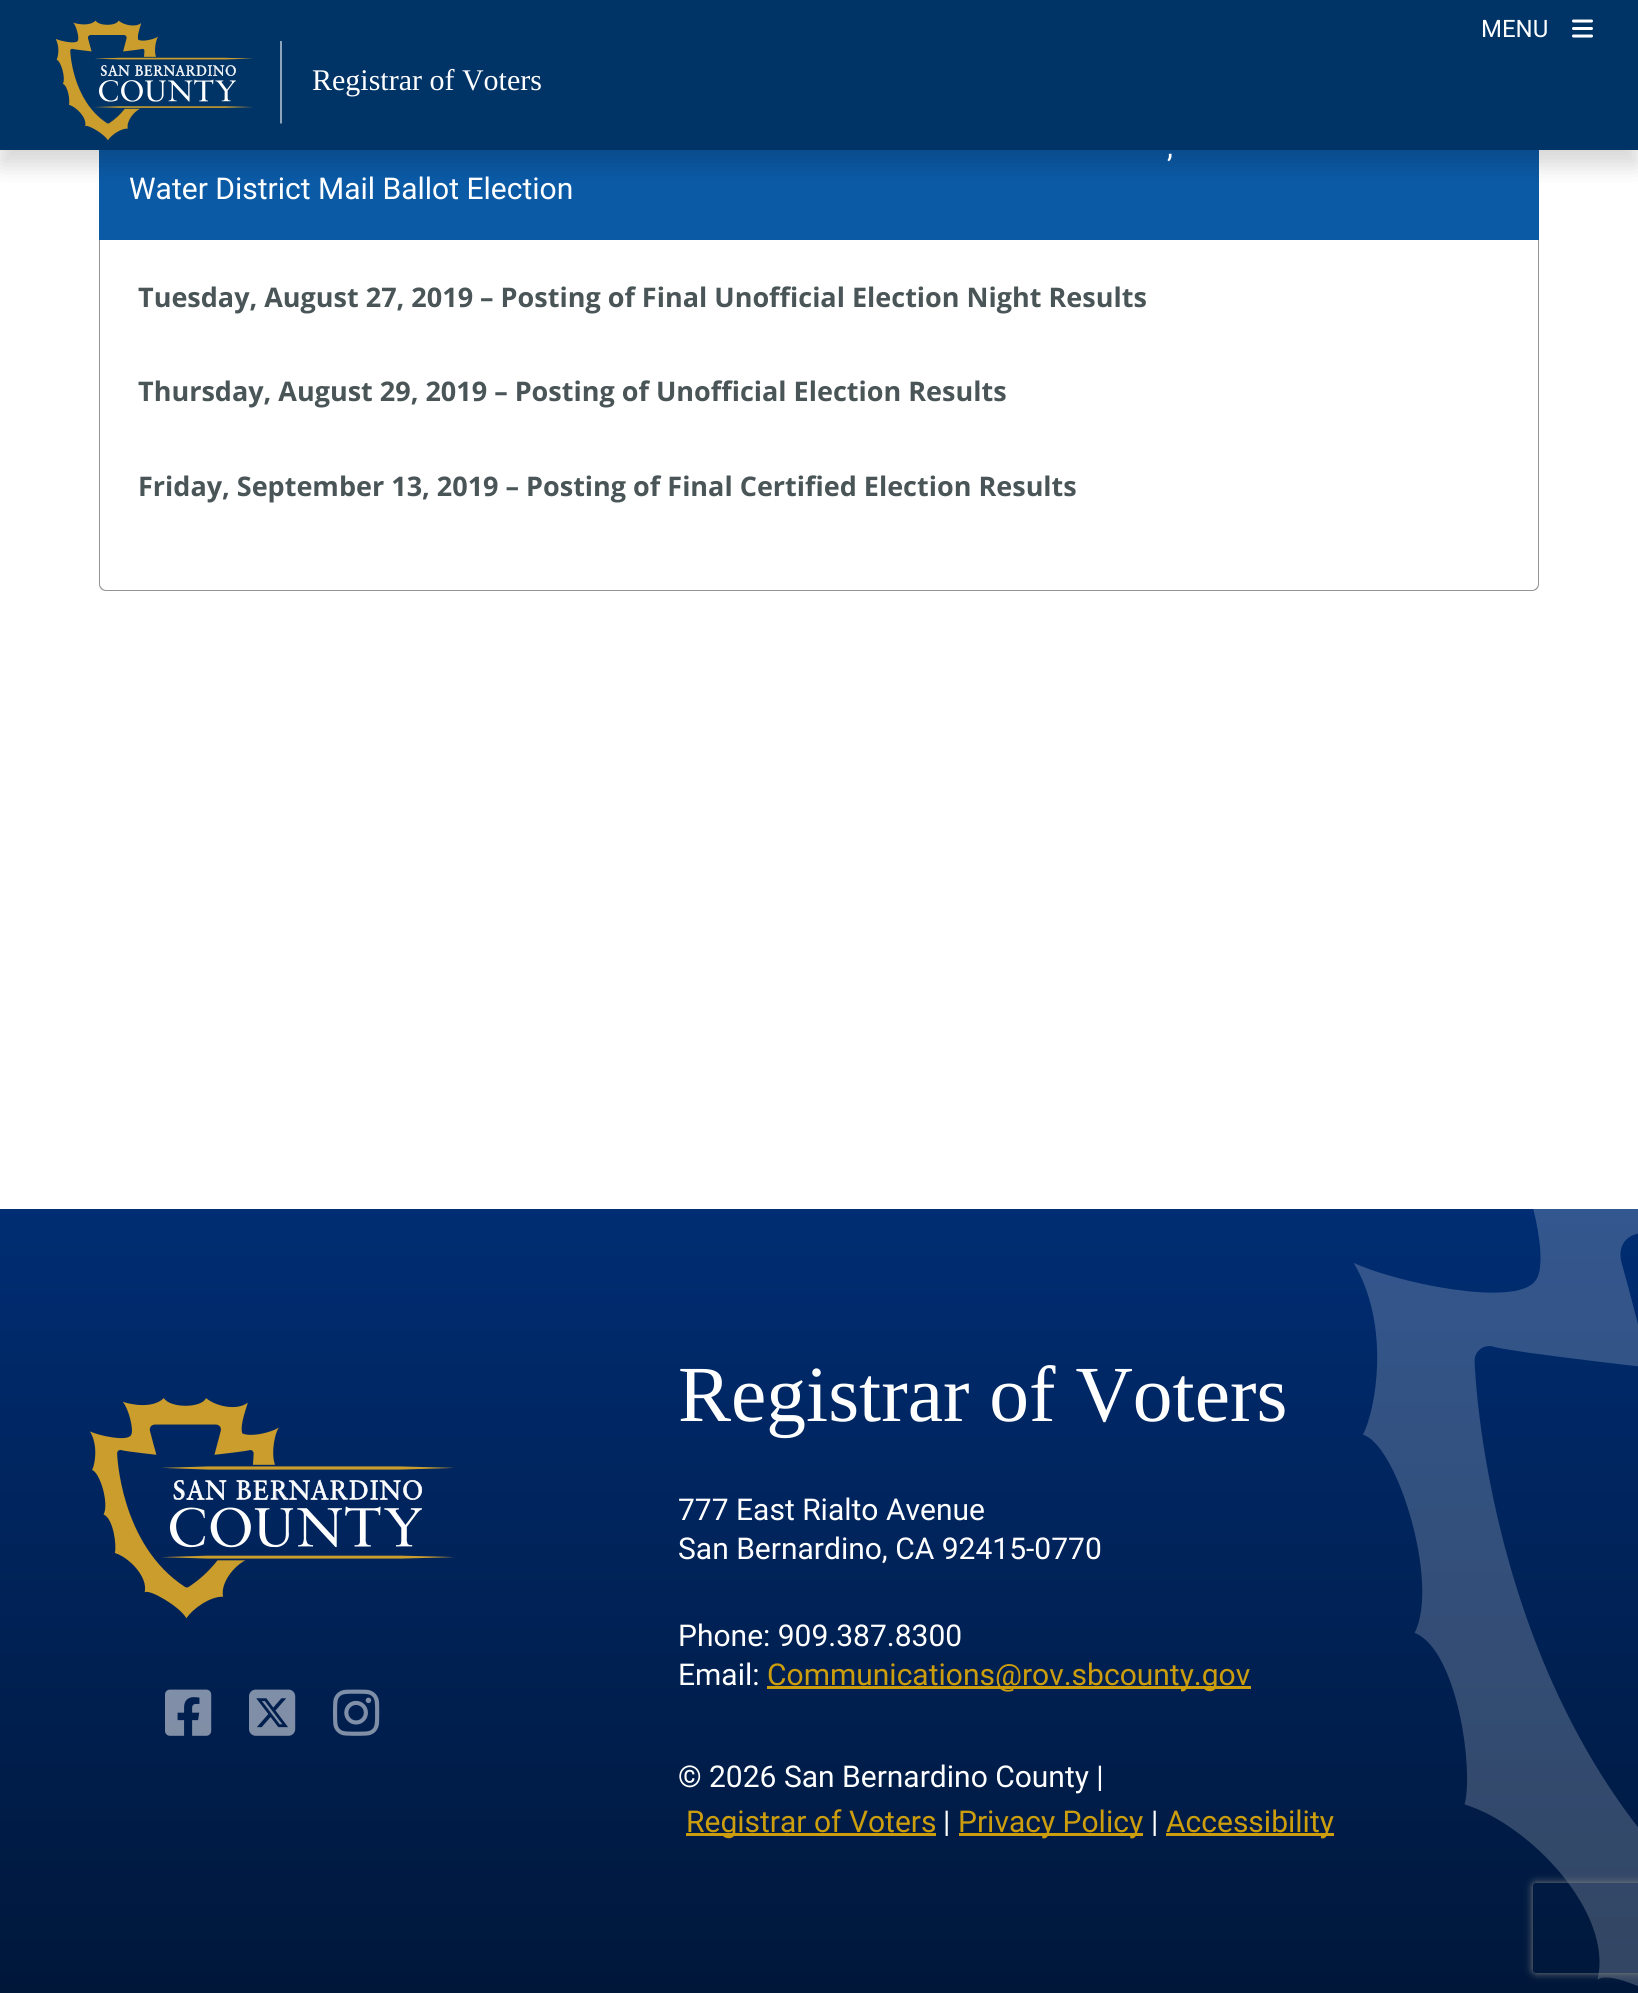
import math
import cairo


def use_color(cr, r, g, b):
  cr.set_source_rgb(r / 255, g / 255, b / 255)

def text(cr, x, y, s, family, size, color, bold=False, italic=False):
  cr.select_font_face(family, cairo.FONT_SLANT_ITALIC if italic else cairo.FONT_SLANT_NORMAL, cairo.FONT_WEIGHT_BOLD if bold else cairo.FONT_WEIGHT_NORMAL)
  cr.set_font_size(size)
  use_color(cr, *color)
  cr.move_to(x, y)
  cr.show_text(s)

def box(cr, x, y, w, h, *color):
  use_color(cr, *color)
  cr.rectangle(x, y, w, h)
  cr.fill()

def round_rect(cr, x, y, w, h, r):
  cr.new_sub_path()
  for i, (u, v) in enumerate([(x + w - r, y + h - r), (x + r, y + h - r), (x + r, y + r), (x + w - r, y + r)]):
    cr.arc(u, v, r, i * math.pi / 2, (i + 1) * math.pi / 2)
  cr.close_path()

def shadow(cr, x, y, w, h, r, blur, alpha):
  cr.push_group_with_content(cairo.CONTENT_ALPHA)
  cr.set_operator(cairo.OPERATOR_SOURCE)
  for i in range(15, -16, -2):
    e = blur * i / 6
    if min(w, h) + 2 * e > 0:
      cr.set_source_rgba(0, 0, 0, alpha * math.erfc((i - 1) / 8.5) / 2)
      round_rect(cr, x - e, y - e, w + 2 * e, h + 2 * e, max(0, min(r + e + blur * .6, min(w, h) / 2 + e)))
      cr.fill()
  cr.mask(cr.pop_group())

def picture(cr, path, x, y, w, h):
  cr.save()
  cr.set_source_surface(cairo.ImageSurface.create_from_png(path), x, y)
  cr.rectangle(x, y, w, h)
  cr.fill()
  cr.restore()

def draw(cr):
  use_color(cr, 255, 255, 255)
  cr.paint()
  box(cr, 99, 150, 1440, 90, 11, 90, 166)
  use_color(cr, 0, 0, 0)
  shadow(cr, 0, 15, 1638, 150, 0, 11, 0.16)
  box(cr, 0, 0, 1638, 150, 0, 51, 102)
  picture(cr, "img_01.png", 1572, 19, 21, 19)
  picture(cr, "img_02.png", 56, 20, 198, 121)
  cr.new_path()
  cr.move_to(281, 123.5)
  cr.line_to(281, 41)
  use_color(cr, 255, 255, 255)
  cr.set_line_width(1.1)
  cr.stroke()
  use_color(cr, 148, 148, 148)
  cr.set_fill_rule(cairo.FILL_RULE_EVEN_ODD)
  cr.new_path()
  cr.move_to(99, 240)
  cr.line_to(1539, 240)
  cr.line_to(1539, 584)
  cr.curve_to(1539, 588, 1536, 591, 1532, 591)
  cr.line_to(106, 591)
  cr.curve_to(102, 591, 99, 588, 99, 584)
  cr.close_path()
  cr.move_to(100, 240)
  cr.line_to(1538, 240)
  cr.line_to(1538, 584)
  cr.curve_to(1538, 587, 1535, 590, 1532, 590)
  cr.line_to(106, 590)
  cr.curve_to(103, 590, 100, 587, 100, 584)
  cr.close_path()
  cr.fill()
  gradient = cairo.LinearGradient(819, 1209, 819, 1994)
  gradient.add_color_stop_rgba(0, 0, 0.176, 0.451, 1)
  gradient.add_color_stop_rgba(1, 0, 0.09, 0.227, 1)
  cr.set_source(gradient)
  cr.rectangle(0, 1209, 1638, 784)
  cr.fill()
  picture(cr, "img_03.png", 90, 1398, 364, 221)
  picture(cr, "img_04.png", 165, 1689, 47, 47)
  picture(cr, "img_05.png", 249, 1689, 47, 47)
  picture(cr, "img_06.png", 333, 1689, 47, 47)
  box(cr, 767, 1686, 484, 3, 204, 157, 13)
  box(cr, 686, 1833, 250, 3, 204, 157, 13)
  box(cr, 959, 1833, 184, 3, 204, 157, 13)
  box(cr, 1166, 1833, 168, 3, 204, 157, 13)
  picture(cr, "img_07.png", 1354, 1209, 284, 777)
  cr.save()
  cr.new_path()
  cr.move_to(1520, 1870)
  cr.line_to(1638, 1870)
  cr.line_to(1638, 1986)
  cr.line_to(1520, 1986)
  cr.close_path()
  cr.move_to(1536, 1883)
  cr.line_to(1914, 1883)
  cr.curve_to(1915.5, 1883, 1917, 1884.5, 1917, 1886)
  cr.line_to(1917, 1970)
  cr.curve_to(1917, 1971.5, 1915.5, 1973, 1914, 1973)
  cr.line_to(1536, 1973)
  cr.curve_to(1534.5, 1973, 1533, 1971.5, 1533, 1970)
  cr.line_to(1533, 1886)
  cr.curve_to(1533, 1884.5, 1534.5, 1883, 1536, 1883)
  cr.close_path()
  cr.clip()
  use_color(cr, 128, 128, 128)
  shadow(cr, 1533, 1883, 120, 90, 3, 4, 1)
  cr.restore()
  text(cr, 1481, 37, "MENU", "Roboto", 24, (255, 255, 255))
  text(cr, 312, 90, "Registrar of Voters", "Liberation Serif", 30, (255, 255, 255))
  text(cr, 1167, 157, ",", "Roboto", 30, (255, 255, 255))
  text(cr, 129, 199, "Water District Mail Ballot Election", "Roboto", 30, (255, 255, 255))
  text(cr, 138, 307, "Tuesday, August 27, 2019 – Posting of Final Unofficial Election Night Results", "Open Sans", 27, (74, 85, 88), bold=True)
  text(cr, 138, 401, "Thursday, August 29, 2019 – Posting of Unofficial Election Results", "Open Sans", 27, (74, 85, 88), bold=True)
  text(cr, 138, 496, "Friday, September 13, 2019 – Posting of Final Certified Election Results", "Open Sans", 27, (74, 85, 88), bold=True)
  text(cr, 678, 1421, "Registrar of Voters", "Liberation Serif", 79.5, (255, 255, 255))
  text(cr, 678, 1520, "777 East Rialto Avenue", "Roboto", 30, (255, 255, 255))
  text(cr, 678, 1559, "San Bernardino, CA 92415-0770", "Roboto", 30, (255, 255, 255))
  text(cr, 678, 1646, "Phone: 909.387.8300", "Roboto", 30, (255, 255, 255))
  text(cr, 678, 1685, "Email:", "Roboto", 30, (255, 255, 255))
  text(cr, 767, 1685, "Communications@rov.sbcounty.gov", "Roboto", 30, (204, 157, 13))
  text(cr, 678, 1787, "© 2026 San Bernardino County |", "Roboto", 30, (255, 255, 255))
  text(cr, 686, 1832, "Registrar of Voters", "Roboto", 30, (204, 157, 13))
  text(cr, 943, 1832, "|", "Roboto", 30, (255, 255, 255))
  text(cr, 958, 1832, "Privacy Policy", "Roboto", 30, (204, 157, 13))
  text(cr, 1151, 1832, "|", "Roboto", 30, (255, 255, 255))
  text(cr, 1166, 1832, "Accessibility", "Roboto", 30, (204, 157, 13))


surface = cairo.ImageSurface(cairo.FORMAT_RGB24, 1638, 1993)
cr = cairo.Context(surface)
options = cairo.FontOptions()
options.set_hint_metrics(cairo.HINT_METRICS_OFF)
options.set_hint_style(cairo.HINT_STYLE_NONE)
cr.set_font_options(options)
cr.set_miter_limit(4)
draw(cr)
surface.write_to_png("out.png")
